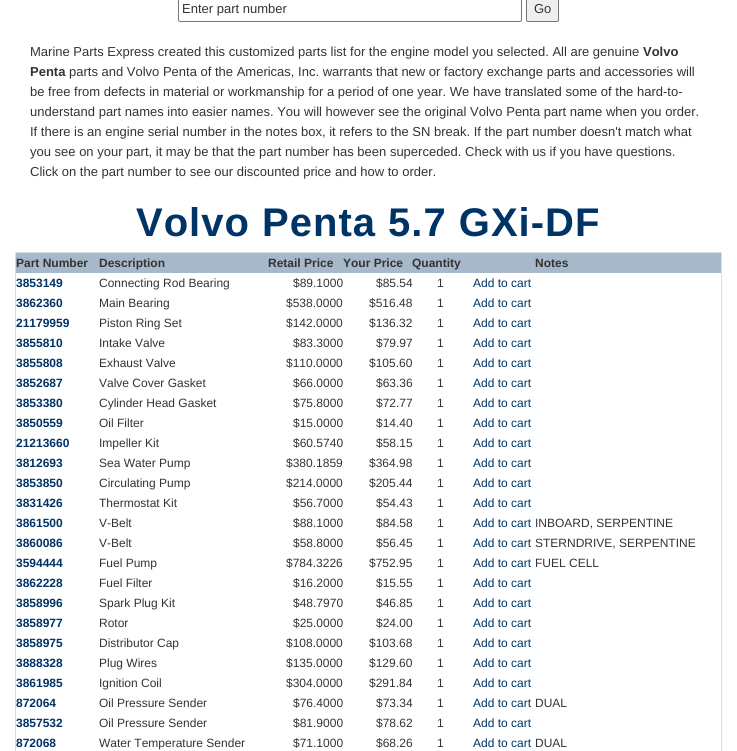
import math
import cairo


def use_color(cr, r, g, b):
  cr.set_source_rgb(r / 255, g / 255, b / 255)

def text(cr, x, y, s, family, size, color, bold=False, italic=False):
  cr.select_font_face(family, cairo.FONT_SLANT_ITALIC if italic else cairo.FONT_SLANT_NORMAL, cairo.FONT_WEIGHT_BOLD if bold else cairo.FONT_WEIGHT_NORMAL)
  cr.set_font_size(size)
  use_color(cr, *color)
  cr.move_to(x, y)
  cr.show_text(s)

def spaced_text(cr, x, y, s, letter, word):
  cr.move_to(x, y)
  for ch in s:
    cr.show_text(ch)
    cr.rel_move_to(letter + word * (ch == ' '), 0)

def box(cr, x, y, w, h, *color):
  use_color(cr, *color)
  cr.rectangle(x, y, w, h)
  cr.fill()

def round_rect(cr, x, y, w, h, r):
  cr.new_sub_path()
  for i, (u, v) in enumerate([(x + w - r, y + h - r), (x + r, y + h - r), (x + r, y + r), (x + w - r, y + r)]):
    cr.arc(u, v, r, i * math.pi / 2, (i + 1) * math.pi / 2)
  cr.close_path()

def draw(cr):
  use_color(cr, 255, 255, 255)
  cr.paint()
  round_rect(cr, 178.5, -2.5, 343, 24, 1.5)
  use_color(cr, 118, 118, 118)
  cr.set_line_width(1)
  cr.stroke()
  use_color(cr, 239, 239, 239)
  round_rect(cr, 526.5, -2.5, 32, 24, 1.5)
  cr.fill_preserve()
  use_color(cr, 118, 118, 118)
  cr.stroke()
  box(cr, 15, 252, 707, 1, 221, 221, 221)
  box(cr, 721, 252, 1, 499, 221, 221, 221)
  box(cr, 15, 252, 1, 499, 221, 221, 221)
  box(cr, 16, 253, 705, 20, 166, 184, 201)
  text(cr, 182, 13, "Enter part number", "Liberation Sans", 13, (51, 51, 51))
  text(cr, 534, 13, "Go", "Liberation Sans", 13, (51, 51, 51))
  text(cr, 30, 56, "Marine Parts Express created this customized parts list for the engine model you selected. All are genuine", "Liberation Sans", 13, (51, 51, 51))
  text(cr, 643, 56, "Volvo", "Liberation Sans", 13, (51, 51, 51), bold=True)
  text(cr, 30, 76, "Penta", "Liberation Sans", 13, (51, 51, 51), bold=True)
  text(cr, 69, 76, "parts and Volvo Penta of the Americas, Inc. warrants that new or factory exchange parts and accessories will", "Liberation Sans", 13, (51, 51, 51))
  text(cr, 30, 96, "be free from defects in material or workmanship for a period of one year. We have translated some of the hard-to-", "Liberation Sans", 13, (51, 51, 51))
  text(cr, 30, 116, "understand part names into easier names. You will however see the original Volvo Penta part name when you order.", "Liberation Sans", 13, (51, 51, 51))
  text(cr, 30, 136, "If there is an engine serial number in the notes box, it refers to the SN break. If the part number doesn't match what", "Liberation Sans", 13, (51, 51, 51))
  text(cr, 30, 156, "you see on your part, it may be that the part number has been superceded. Check with us if you have questions.", "Liberation Sans", 13, (51, 51, 51))
  text(cr, 30, 176, "Click on the part number to see our discounted price and how to order.", "Liberation Sans", 13, (51, 51, 51))
  cr.select_font_face("Liberation Sans", cairo.FONT_SLANT_NORMAL, cairo.FONT_WEIGHT_BOLD)
  cr.set_font_size(40)
  use_color(cr, 0, 51, 102)
  spaced_text(cr, 136, 236, "Volvo Penta 5.7 GXi-DF", 1, 0)
  text(cr, 16, 267, "Part Number", "Liberation Sans", 12, (51, 51, 51), bold=True)
  text(cr, 99, 267, "Description", "Liberation Sans", 12, (51, 51, 51), bold=True)
  text(cr, 268, 267, "Retail Price", "Liberation Sans", 12, (51, 51, 51), bold=True)
  text(cr, 343, 267, "Your Price", "Liberation Sans", 12, (51, 51, 51), bold=True)
  text(cr, 412, 267, "Quantity", "Liberation Sans", 12, (51, 51, 51), bold=True)
  text(cr, 535, 267, "Notes", "Liberation Sans", 12, (51, 51, 51), bold=True)
  text(cr, 16, 287, "3853149", "Liberation Sans", 12, (0, 51, 102), bold=True)
  text(cr, 99, 287, "Connecting Rod Bearing", "Liberation Sans", 12, (51, 51, 51))
  text(cr, 293, 287, "$89.1000", "Liberation Sans", 12, (51, 51, 51))
  text(cr, 376, 287, "$85.54", "Liberation Sans", 12, (51, 51, 51))
  text(cr, 437, 287, "1", "Liberation Sans", 12, (51, 51, 51))
  text(cr, 473, 287, "Add to cart", "Liberation Sans", 12, (0, 51, 102))
  text(cr, 16, 307, "3862360", "Liberation Sans", 12, (0, 51, 102), bold=True)
  text(cr, 99, 307, "Main Bearing", "Liberation Sans", 12, (51, 51, 51))
  text(cr, 286, 307, "$538.0000", "Liberation Sans", 12, (51, 51, 51))
  text(cr, 369, 307, "$516.48", "Liberation Sans", 12, (51, 51, 51))
  text(cr, 437, 307, "1", "Liberation Sans", 12, (51, 51, 51))
  text(cr, 473, 307, "Add to cart", "Liberation Sans", 12, (0, 51, 102))
  text(cr, 16, 327, "21179959", "Liberation Sans", 12, (0, 51, 102), bold=True)
  text(cr, 99, 327, "Piston Ring Set", "Liberation Sans", 12, (51, 51, 51))
  text(cr, 286, 327, "$142.0000", "Liberation Sans", 12, (51, 51, 51))
  text(cr, 369, 327, "$136.32", "Liberation Sans", 12, (51, 51, 51))
  text(cr, 437, 327, "1", "Liberation Sans", 12, (51, 51, 51))
  text(cr, 473, 327, "Add to cart", "Liberation Sans", 12, (0, 51, 102))
  text(cr, 16, 347, "3855810", "Liberation Sans", 12, (0, 51, 102), bold=True)
  text(cr, 99, 347, "Intake Valve", "Liberation Sans", 12, (51, 51, 51))
  text(cr, 293, 347, "$83.3000", "Liberation Sans", 12, (51, 51, 51))
  text(cr, 376, 347, "$79.97", "Liberation Sans", 12, (51, 51, 51))
  text(cr, 437, 347, "1", "Liberation Sans", 12, (51, 51, 51))
  text(cr, 473, 347, "Add to cart", "Liberation Sans", 12, (0, 51, 102))
  text(cr, 16, 367, "3855808", "Liberation Sans", 12, (0, 51, 102), bold=True)
  text(cr, 99, 367, "Exhaust Valve", "Liberation Sans", 12, (51, 51, 51))
  text(cr, 286, 367, "$110.0000", "Liberation Sans", 12, (51, 51, 51))
  text(cr, 369, 367, "$105.60", "Liberation Sans", 12, (51, 51, 51))
  text(cr, 437, 367, "1", "Liberation Sans", 12, (51, 51, 51))
  text(cr, 473, 367, "Add to cart", "Liberation Sans", 12, (0, 51, 102))
  text(cr, 16, 387, "3852687", "Liberation Sans", 12, (0, 51, 102), bold=True)
  text(cr, 99, 387, "Valve Cover Gasket", "Liberation Sans", 12, (51, 51, 51))
  text(cr, 293, 387, "$66.0000", "Liberation Sans", 12, (51, 51, 51))
  text(cr, 376, 387, "$63.36", "Liberation Sans", 12, (51, 51, 51))
  text(cr, 437, 387, "1", "Liberation Sans", 12, (51, 51, 51))
  text(cr, 473, 387, "Add to cart", "Liberation Sans", 12, (0, 51, 102))
  text(cr, 16, 407, "3853380", "Liberation Sans", 12, (0, 51, 102), bold=True)
  text(cr, 99, 407, "Cylinder Head Gasket", "Liberation Sans", 12, (51, 51, 51))
  text(cr, 293, 407, "$75.8000", "Liberation Sans", 12, (51, 51, 51))
  text(cr, 376, 407, "$72.77", "Liberation Sans", 12, (51, 51, 51))
  text(cr, 437, 407, "1", "Liberation Sans", 12, (51, 51, 51))
  text(cr, 473, 407, "Add to cart", "Liberation Sans", 12, (0, 51, 102))
  text(cr, 16, 427, "3850559", "Liberation Sans", 12, (0, 51, 102), bold=True)
  text(cr, 99, 427, "Oil Filter", "Liberation Sans", 12, (51, 51, 51))
  text(cr, 293, 427, "$15.0000", "Liberation Sans", 12, (51, 51, 51))
  text(cr, 376, 427, "$14.40", "Liberation Sans", 12, (51, 51, 51))
  text(cr, 437, 427, "1", "Liberation Sans", 12, (51, 51, 51))
  text(cr, 473, 427, "Add to cart", "Liberation Sans", 12, (0, 51, 102))
  text(cr, 16, 447, "21213660", "Liberation Sans", 12, (0, 51, 102), bold=True)
  text(cr, 99, 447, "Impeller Kit", "Liberation Sans", 12, (51, 51, 51))
  text(cr, 293, 447, "$60.5740", "Liberation Sans", 12, (51, 51, 51))
  text(cr, 376, 447, "$58.15", "Liberation Sans", 12, (51, 51, 51))
  text(cr, 437, 447, "1", "Liberation Sans", 12, (51, 51, 51))
  text(cr, 473, 447, "Add to cart", "Liberation Sans", 12, (0, 51, 102))
  text(cr, 16, 467, "3812693", "Liberation Sans", 12, (0, 51, 102), bold=True)
  text(cr, 99, 467, "Sea Water Pump", "Liberation Sans", 12, (51, 51, 51))
  text(cr, 286, 467, "$380.1859", "Liberation Sans", 12, (51, 51, 51))
  text(cr, 369, 467, "$364.98", "Liberation Sans", 12, (51, 51, 51))
  text(cr, 437, 467, "1", "Liberation Sans", 12, (51, 51, 51))
  text(cr, 473, 467, "Add to cart", "Liberation Sans", 12, (0, 51, 102))
  text(cr, 16, 487, "3853850", "Liberation Sans", 12, (0, 51, 102), bold=True)
  text(cr, 99, 487, "Circulating Pump", "Liberation Sans", 12, (51, 51, 51))
  text(cr, 286, 487, "$214.0000", "Liberation Sans", 12, (51, 51, 51))
  text(cr, 369, 487, "$205.44", "Liberation Sans", 12, (51, 51, 51))
  text(cr, 437, 487, "1", "Liberation Sans", 12, (51, 51, 51))
  text(cr, 473, 487, "Add to cart", "Liberation Sans", 12, (0, 51, 102))
  text(cr, 16, 507, "3831426", "Liberation Sans", 12, (0, 51, 102), bold=True)
  text(cr, 99, 507, "Thermostat Kit", "Liberation Sans", 12, (51, 51, 51))
  text(cr, 293, 507, "$56.7000", "Liberation Sans", 12, (51, 51, 51))
  text(cr, 376, 507, "$54.43", "Liberation Sans", 12, (51, 51, 51))
  text(cr, 437, 507, "1", "Liberation Sans", 12, (51, 51, 51))
  text(cr, 473, 507, "Add to cart", "Liberation Sans", 12, (0, 51, 102))
  text(cr, 16, 527, "3861500", "Liberation Sans", 12, (0, 51, 102), bold=True)
  text(cr, 99, 527, "V-Belt", "Liberation Sans", 12, (51, 51, 51))
  text(cr, 293, 527, "$88.1000", "Liberation Sans", 12, (51, 51, 51))
  text(cr, 376, 527, "$84.58", "Liberation Sans", 12, (51, 51, 51))
  text(cr, 437, 527, "1", "Liberation Sans", 12, (51, 51, 51))
  text(cr, 473, 527, "Add to cart", "Liberation Sans", 12, (0, 51, 102))
  text(cr, 535, 527, "INBOARD, SERPENTINE", "Liberation Sans", 12, (51, 51, 51))
  text(cr, 16, 547, "3860086", "Liberation Sans", 12, (0, 51, 102), bold=True)
  text(cr, 99, 547, "V-Belt", "Liberation Sans", 12, (51, 51, 51))
  text(cr, 293, 547, "$58.8000", "Liberation Sans", 12, (51, 51, 51))
  text(cr, 376, 547, "$56.45", "Liberation Sans", 12, (51, 51, 51))
  text(cr, 437, 547, "1", "Liberation Sans", 12, (51, 51, 51))
  text(cr, 473, 547, "Add to cart", "Liberation Sans", 12, (0, 51, 102))
  text(cr, 535, 547, "STERNDRIVE, SERPENTINE", "Liberation Sans", 12, (51, 51, 51))
  text(cr, 16, 567, "3594444", "Liberation Sans", 12, (0, 51, 102), bold=True)
  text(cr, 99, 567, "Fuel Pump", "Liberation Sans", 12, (51, 51, 51))
  text(cr, 286, 567, "$784.3226", "Liberation Sans", 12, (51, 51, 51))
  text(cr, 369, 567, "$752.95", "Liberation Sans", 12, (51, 51, 51))
  text(cr, 437, 567, "1", "Liberation Sans", 12, (51, 51, 51))
  text(cr, 473, 567, "Add to cart", "Liberation Sans", 12, (0, 51, 102))
  text(cr, 535, 567, "FUEL CELL", "Liberation Sans", 12, (51, 51, 51))
  text(cr, 16, 587, "3862228", "Liberation Sans", 12, (0, 51, 102), bold=True)
  text(cr, 99, 587, "Fuel Filter", "Liberation Sans", 12, (51, 51, 51))
  text(cr, 293, 587, "$16.2000", "Liberation Sans", 12, (51, 51, 51))
  text(cr, 376, 587, "$15.55", "Liberation Sans", 12, (51, 51, 51))
  text(cr, 437, 587, "1", "Liberation Sans", 12, (51, 51, 51))
  text(cr, 473, 587, "Add to cart", "Liberation Sans", 12, (0, 51, 102))
  text(cr, 16, 607, "3858996", "Liberation Sans", 12, (0, 51, 102), bold=True)
  text(cr, 99, 607, "Spark Plug Kit", "Liberation Sans", 12, (51, 51, 51))
  text(cr, 293, 607, "$48.7970", "Liberation Sans", 12, (51, 51, 51))
  text(cr, 376, 607, "$46.85", "Liberation Sans", 12, (51, 51, 51))
  text(cr, 437, 607, "1", "Liberation Sans", 12, (51, 51, 51))
  text(cr, 473, 607, "Add to cart", "Liberation Sans", 12, (0, 51, 102))
  text(cr, 16, 627, "3858977", "Liberation Sans", 12, (0, 51, 102), bold=True)
  text(cr, 99, 627, "Rotor", "Liberation Sans", 12, (51, 51, 51))
  text(cr, 293, 627, "$25.0000", "Liberation Sans", 12, (51, 51, 51))
  text(cr, 376, 627, "$24.00", "Liberation Sans", 12, (51, 51, 51))
  text(cr, 437, 627, "1", "Liberation Sans", 12, (51, 51, 51))
  text(cr, 473, 627, "Add to cart", "Liberation Sans", 12, (0, 51, 102))
  text(cr, 16, 647, "3858975", "Liberation Sans", 12, (0, 51, 102), bold=True)
  text(cr, 99, 647, "Distributor Cap", "Liberation Sans", 12, (51, 51, 51))
  text(cr, 286, 647, "$108.0000", "Liberation Sans", 12, (51, 51, 51))
  text(cr, 369, 647, "$103.68", "Liberation Sans", 12, (51, 51, 51))
  text(cr, 437, 647, "1", "Liberation Sans", 12, (51, 51, 51))
  text(cr, 473, 647, "Add to cart", "Liberation Sans", 12, (0, 51, 102))
  text(cr, 16, 667, "3888328", "Liberation Sans", 12, (0, 51, 102), bold=True)
  text(cr, 99, 667, "Plug Wires", "Liberation Sans", 12, (51, 51, 51))
  text(cr, 286, 667, "$135.0000", "Liberation Sans", 12, (51, 51, 51))
  text(cr, 369, 667, "$129.60", "Liberation Sans", 12, (51, 51, 51))
  text(cr, 437, 667, "1", "Liberation Sans", 12, (51, 51, 51))
  text(cr, 473, 667, "Add to cart", "Liberation Sans", 12, (0, 51, 102))
  text(cr, 16, 687, "3861985", "Liberation Sans", 12, (0, 51, 102), bold=True)
  text(cr, 99, 687, "Ignition Coil", "Liberation Sans", 12, (51, 51, 51))
  text(cr, 286, 687, "$304.0000", "Liberation Sans", 12, (51, 51, 51))
  text(cr, 369, 687, "$291.84", "Liberation Sans", 12, (51, 51, 51))
  text(cr, 437, 687, "1", "Liberation Sans", 12, (51, 51, 51))
  text(cr, 473, 687, "Add to cart", "Liberation Sans", 12, (0, 51, 102))
  text(cr, 16, 707, "872064", "Liberation Sans", 12, (0, 51, 102), bold=True)
  text(cr, 99, 707, "Oil Pressure Sender", "Liberation Sans", 12, (51, 51, 51))
  text(cr, 293, 707, "$76.4000", "Liberation Sans", 12, (51, 51, 51))
  text(cr, 376, 707, "$73.34", "Liberation Sans", 12, (51, 51, 51))
  text(cr, 437, 707, "1", "Liberation Sans", 12, (51, 51, 51))
  text(cr, 473, 707, "Add to cart", "Liberation Sans", 12, (0, 51, 102))
  text(cr, 535, 707, "DUAL", "Liberation Sans", 12, (51, 51, 51))
  text(cr, 16, 727, "3857532", "Liberation Sans", 12, (0, 51, 102), bold=True)
  text(cr, 99, 727, "Oil Pressure Sender", "Liberation Sans", 12, (51, 51, 51))
  text(cr, 293, 727, "$81.9000", "Liberation Sans", 12, (51, 51, 51))
  text(cr, 376, 727, "$78.62", "Liberation Sans", 12, (51, 51, 51))
  text(cr, 437, 727, "1", "Liberation Sans", 12, (51, 51, 51))
  text(cr, 473, 727, "Add to cart", "Liberation Sans", 12, (0, 51, 102))
  text(cr, 16, 747, "872068", "Liberation Sans", 12, (0, 51, 102), bold=True)
  text(cr, 99, 747, "Water Temperature Sender", "Liberation Sans", 12, (51, 51, 51))
  text(cr, 293, 747, "$71.1000", "Liberation Sans", 12, (51, 51, 51))
  text(cr, 376, 747, "$68.26", "Liberation Sans", 12, (51, 51, 51))
  text(cr, 437, 747, "1", "Liberation Sans", 12, (51, 51, 51))
  text(cr, 473, 747, "Add to cart", "Liberation Sans", 12, (0, 51, 102))
  text(cr, 535, 747, "DUAL", "Liberation Sans", 12, (51, 51, 51))


surface = cairo.ImageSurface(cairo.FORMAT_RGB24, 737, 751)
cr = cairo.Context(surface)
options = cairo.FontOptions()
options.set_hint_metrics(cairo.HINT_METRICS_OFF)
options.set_hint_style(cairo.HINT_STYLE_NONE)
cr.set_font_options(options)
cr.set_miter_limit(4)
draw(cr)
surface.write_to_png("out.png")
